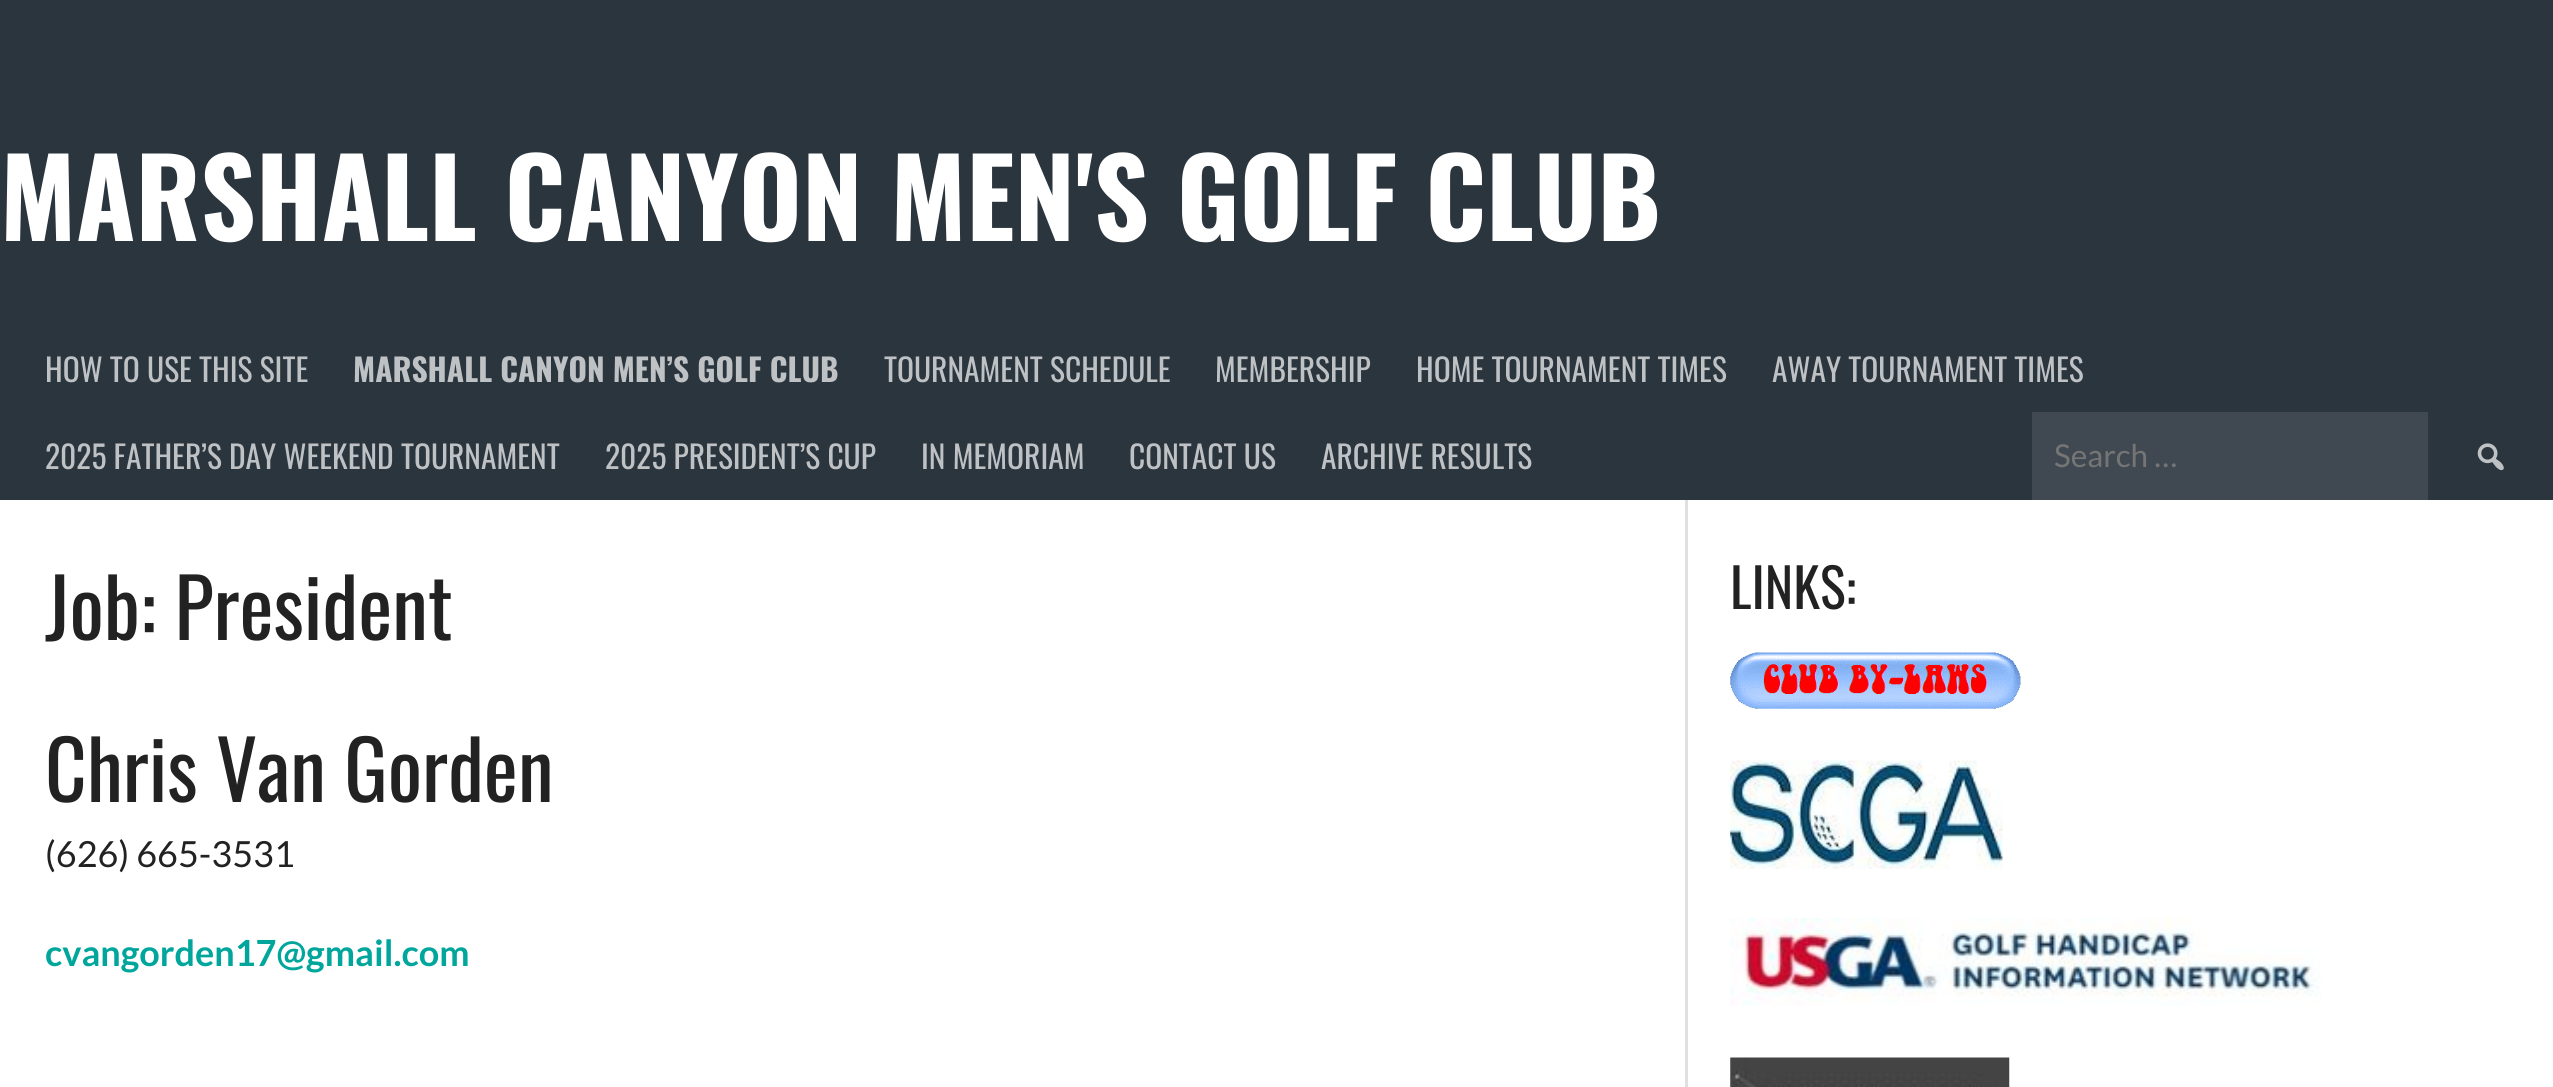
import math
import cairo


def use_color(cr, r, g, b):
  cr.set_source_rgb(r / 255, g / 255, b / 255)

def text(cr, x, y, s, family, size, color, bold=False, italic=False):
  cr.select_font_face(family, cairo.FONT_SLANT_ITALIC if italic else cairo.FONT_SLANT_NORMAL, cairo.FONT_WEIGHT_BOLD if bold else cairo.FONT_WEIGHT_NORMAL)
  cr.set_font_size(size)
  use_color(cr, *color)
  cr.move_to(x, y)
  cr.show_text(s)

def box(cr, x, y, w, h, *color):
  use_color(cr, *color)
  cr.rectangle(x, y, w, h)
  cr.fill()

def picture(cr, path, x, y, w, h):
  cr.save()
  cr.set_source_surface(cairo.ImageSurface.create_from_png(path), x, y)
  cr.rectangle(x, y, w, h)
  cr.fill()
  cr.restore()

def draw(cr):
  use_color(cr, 43, 53, 62)
  cr.paint()
  box(cr, 2032, 412, 396, 88, 64, 73, 81)
  picture(cr, "img_01.png", 2477, 443, 27, 28)
  box(cr, 0, 500, 2553, 587, 255, 255, 255)
  use_color(cr, 224, 224, 224)
  cr.new_path()
  cr.move_to(2, 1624)
  cr.line_to(2, 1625)
  cr.line_to(1688, 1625)
  cr.line_to(1688, 500)
  cr.line_to(1685, 500)
  cr.line_to(1685, 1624)
  cr.close_path()
  cr.fill()
  picture(cr, "img_02.png", 1730, 652, 291, 57)
  picture(cr, "img_03.png", 1730, 760, 273, 109)
  picture(cr, "img_04.png", 1730, 918, 591, 88)
  picture(cr, "img_05.png", 1730, 1057, 280, 30)
  text(cr, 0, 241, "MARSHALL CANYON MEN'S GOLF CLUB", "Oswald", 108, (255, 255, 255), bold=True)
  text(cr, 45, 382, "HOW TO USE THIS SITE", "Oswald", 31.5, (191, 194, 197))
  text(cr, 353, 382, "MARSHALL CANYON MEN’S GOLF CLUB", "Oswald", 31.5, (191, 194, 197), bold=True)
  text(cr, 884, 382, "TOURNAMENT SCHEDULE", "Oswald", 31.5, (191, 194, 197))
  text(cr, 1215, 382, "MEMBERSHIP", "Oswald", 31.5, (191, 194, 197))
  text(cr, 1416, 382, "HOME TOURNAMENT TIMES", "Oswald", 31.5, (191, 194, 197))
  text(cr, 1772, 382, "AWAY TOURNAMENT TIMES", "Oswald", 31.5, (191, 194, 197))
  text(cr, 45, 469, "2025 FATHER’S DAY WEEKEND TOURNAMENT", "Oswald", 31.5, (191, 194, 197))
  text(cr, 605, 469, "2025 PRESIDENT’S CUP", "Oswald", 31.5, (191, 194, 197))
  text(cr, 921, 469, "IN MEMORIAM", "Oswald", 31.5, (191, 194, 197))
  text(cr, 1129, 469, "CONTACT US", "Oswald", 31.5, (191, 194, 197))
  text(cr, 1321, 469, "ARCHIVE RESULTS", "Oswald", 31.5, (191, 194, 197))
  text(cr, 2054, 467, "Search …", "Lato", 31.5, (117, 117, 117))
  text(cr, 45, 640, "Job: President", "Oswald", 81, (34, 34, 34))
  text(cr, 45, 802, "Chris Van Gorden", "Oswald", 81, (34, 34, 34))
  text(cr, 45, 867, "(626) 665-3531", "Lato", 36, (34, 34, 34))
  text(cr, 45, 966, "cvangorden17@gmail.com", "Lato", 36, (0, 166, 156), bold=True)
  text(cr, 1730, 609, "LINKS:", "Oswald", 54, (34, 34, 34))


surface = cairo.ImageSurface(cairo.FORMAT_RGB24, 2553, 1087)
cr = cairo.Context(surface)
options = cairo.FontOptions()
options.set_hint_metrics(cairo.HINT_METRICS_OFF)
options.set_hint_style(cairo.HINT_STYLE_NONE)
cr.set_font_options(options)
cr.set_miter_limit(4)
draw(cr)
surface.write_to_png("out.png")
